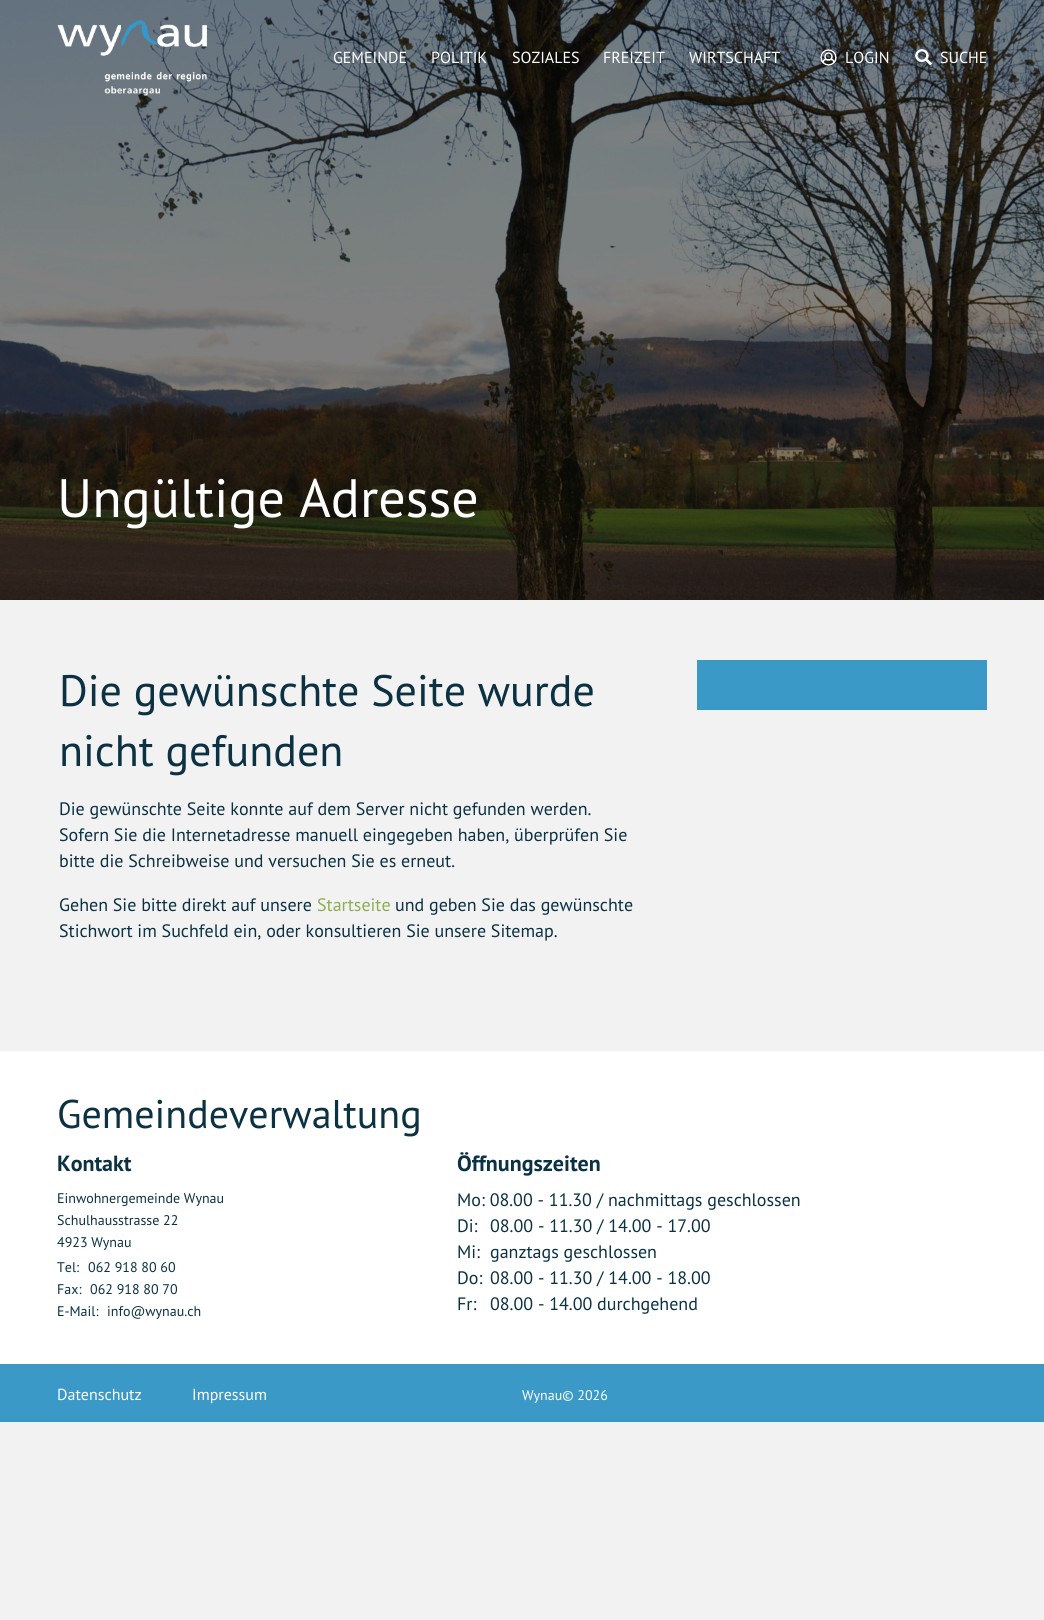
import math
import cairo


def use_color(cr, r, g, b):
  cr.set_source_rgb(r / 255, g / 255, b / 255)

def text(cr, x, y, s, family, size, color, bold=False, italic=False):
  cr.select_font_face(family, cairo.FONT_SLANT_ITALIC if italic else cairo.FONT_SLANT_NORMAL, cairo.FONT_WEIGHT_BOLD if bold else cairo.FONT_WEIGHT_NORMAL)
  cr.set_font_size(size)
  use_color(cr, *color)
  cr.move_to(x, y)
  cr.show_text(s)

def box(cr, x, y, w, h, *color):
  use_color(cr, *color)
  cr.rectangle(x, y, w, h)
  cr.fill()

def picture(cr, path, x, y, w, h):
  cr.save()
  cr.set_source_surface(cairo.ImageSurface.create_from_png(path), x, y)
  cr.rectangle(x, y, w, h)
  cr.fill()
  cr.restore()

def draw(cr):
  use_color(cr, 242, 242, 242)
  cr.paint()
  picture(cr, "img_04.png", 0, 0, 1044, 600)
  picture(cr, "img_01.png", 57, 20, 150, 76)
  picture(cr, "img_02.png", 820, 49, 17, 17)
  picture(cr, "img_03.png", 915, 49, 17, 17)
  box(cr, 697, 660, 290, 50, 59, 153, 200)
  box(cr, 0, 1051, 1044, 313, 255, 255, 255)
  box(cr, 0, 1364, 1044, 58, 59, 153, 200)
  text(cr, 333, 63, "GEMEINDE", "PT Sans", 16, (255, 255, 255))
  text(cr, 431, 63, "POLITIK", "PT Sans", 16, (255, 255, 255))
  text(cr, 512, 63, "SOZIALES", "PT Sans", 16, (255, 255, 255))
  text(cr, 603, 63, "FREIZEIT", "PT Sans", 16, (255, 255, 255))
  text(cr, 689, 63, "WIRTSCHAFT", "PT Sans", 16, (255, 255, 255))
  text(cr, 845, 63, "LOGIN", "PT Sans", 16, (255, 255, 255))
  text(cr, 940, 63, "SUCHE", "PT Sans", 16, (255, 255, 255))
  text(cr, 57, 517, "Ungültige Adresse", "PT Sans", 54, (255, 255, 255))
  text(cr, 59, 706, "Die gewünschte Seite wurde", "PT Sans", 44, (11, 49, 67))
  text(cr, 59, 766, "nicht gefunden", "PT Sans", 44, (11, 49, 67))
  text(cr, 59, 815, "Die gewünschte Seite konnte auf dem Server nicht gefunden werden.", "PT Sans", 18, (11, 49, 67))
  text(cr, 59, 841, "Sofern Sie die Internetadresse manuell eingegeben haben, überprüfen Sie", "PT Sans", 18, (11, 49, 67))
  text(cr, 59, 867, "bitte die Schreibweise und versuchen Sie es erneut.", "PT Sans", 18, (11, 49, 67))
  text(cr, 59, 911, "Gehen Sie bitte direkt auf unsere", "PT Sans", 18, (11, 49, 67))
  text(cr, 317, 911, "Startseite", "PT Sans", 18, (141, 174, 78))
  text(cr, 395, 911, "und geben Sie das gewünschte", "PT Sans", 18, (11, 49, 67))
  text(cr, 59, 937, "Stichwort im Suchfeld ein, oder konsultieren Sie unsere Sitemap.", "PT Sans", 18, (11, 49, 67))
  text(cr, 57, 1128, "Gemeindeverwaltung", "PT Sans", 40, (11, 49, 67))
  text(cr, 57, 1171, "Kontakt", "PT Sans", 22, (11, 49, 67), bold=True)
  text(cr, 57, 1203, "Einwohnergemeinde Wynau", "PT Sans", 14, (11, 49, 67))
  text(cr, 57, 1225, "Schulhausstrasse 22", "PT Sans", 14, (11, 49, 67))
  text(cr, 57, 1247, "4923 Wynau", "PT Sans", 14, (11, 49, 67))
  text(cr, 57, 1272, "Tel:", "PT Sans", 14, (11, 49, 67))
  text(cr, 88, 1272, "062 918 80 60", "PT Sans", 14, (11, 49, 67))
  text(cr, 57, 1294, "Fax:", "PT Sans", 14, (11, 49, 67))
  text(cr, 90, 1294, "062 918 80 70", "PT Sans", 14, (11, 49, 67))
  text(cr, 57, 1316, "E-Mail:", "PT Sans", 14, (11, 49, 67))
  text(cr, 107, 1316, "info@wynau.ch", "PT Sans", 14, (11, 49, 67))
  text(cr, 457, 1171, "Öffnungszeiten", "PT Sans", 22, (11, 49, 67), bold=True)
  text(cr, 457, 1206, "Mo: 08.00 - 11.30 / nachmittags geschlossen", "PT Sans", 18, (11, 49, 67))
  text(cr, 457, 1232, "Di:", "PT Sans", 18, (11, 49, 67))
  text(cr, 490, 1232, "08.00 - 11.30 / 14.00 - 17.00", "PT Sans", 18, (11, 49, 67))
  text(cr, 457, 1258, "Mi:", "PT Sans", 18, (11, 49, 67))
  text(cr, 490, 1258, "ganztags geschlossen", "PT Sans", 18, (11, 49, 67))
  text(cr, 457, 1284, "Do:", "PT Sans", 18, (11, 49, 67))
  text(cr, 490, 1284, "08.00 - 11.30 / 14.00 - 18.00", "PT Sans", 18, (11, 49, 67))
  text(cr, 457, 1310, "Fr:", "PT Sans", 18, (11, 49, 67))
  text(cr, 490, 1310, "08.00 - 14.00 durchgehend", "PT Sans", 18, (11, 49, 67))
  text(cr, 57, 1400, "Datenschutz", "PT Sans", 16, (255, 255, 255))
  text(cr, 192, 1400, "Impressum", "PT Sans", 16, (255, 255, 255))
  text(cr, 522, 1400, "Wynau© 2026", "PT Sans", 14, (255, 255, 255))


surface = cairo.ImageSurface(cairo.FORMAT_RGB24, 1044, 1620)
cr = cairo.Context(surface)
options = cairo.FontOptions()
options.set_hint_metrics(cairo.HINT_METRICS_OFF)
options.set_hint_style(cairo.HINT_STYLE_NONE)
cr.set_font_options(options)
cr.set_miter_limit(4)
draw(cr)
surface.write_to_png("out.png")
